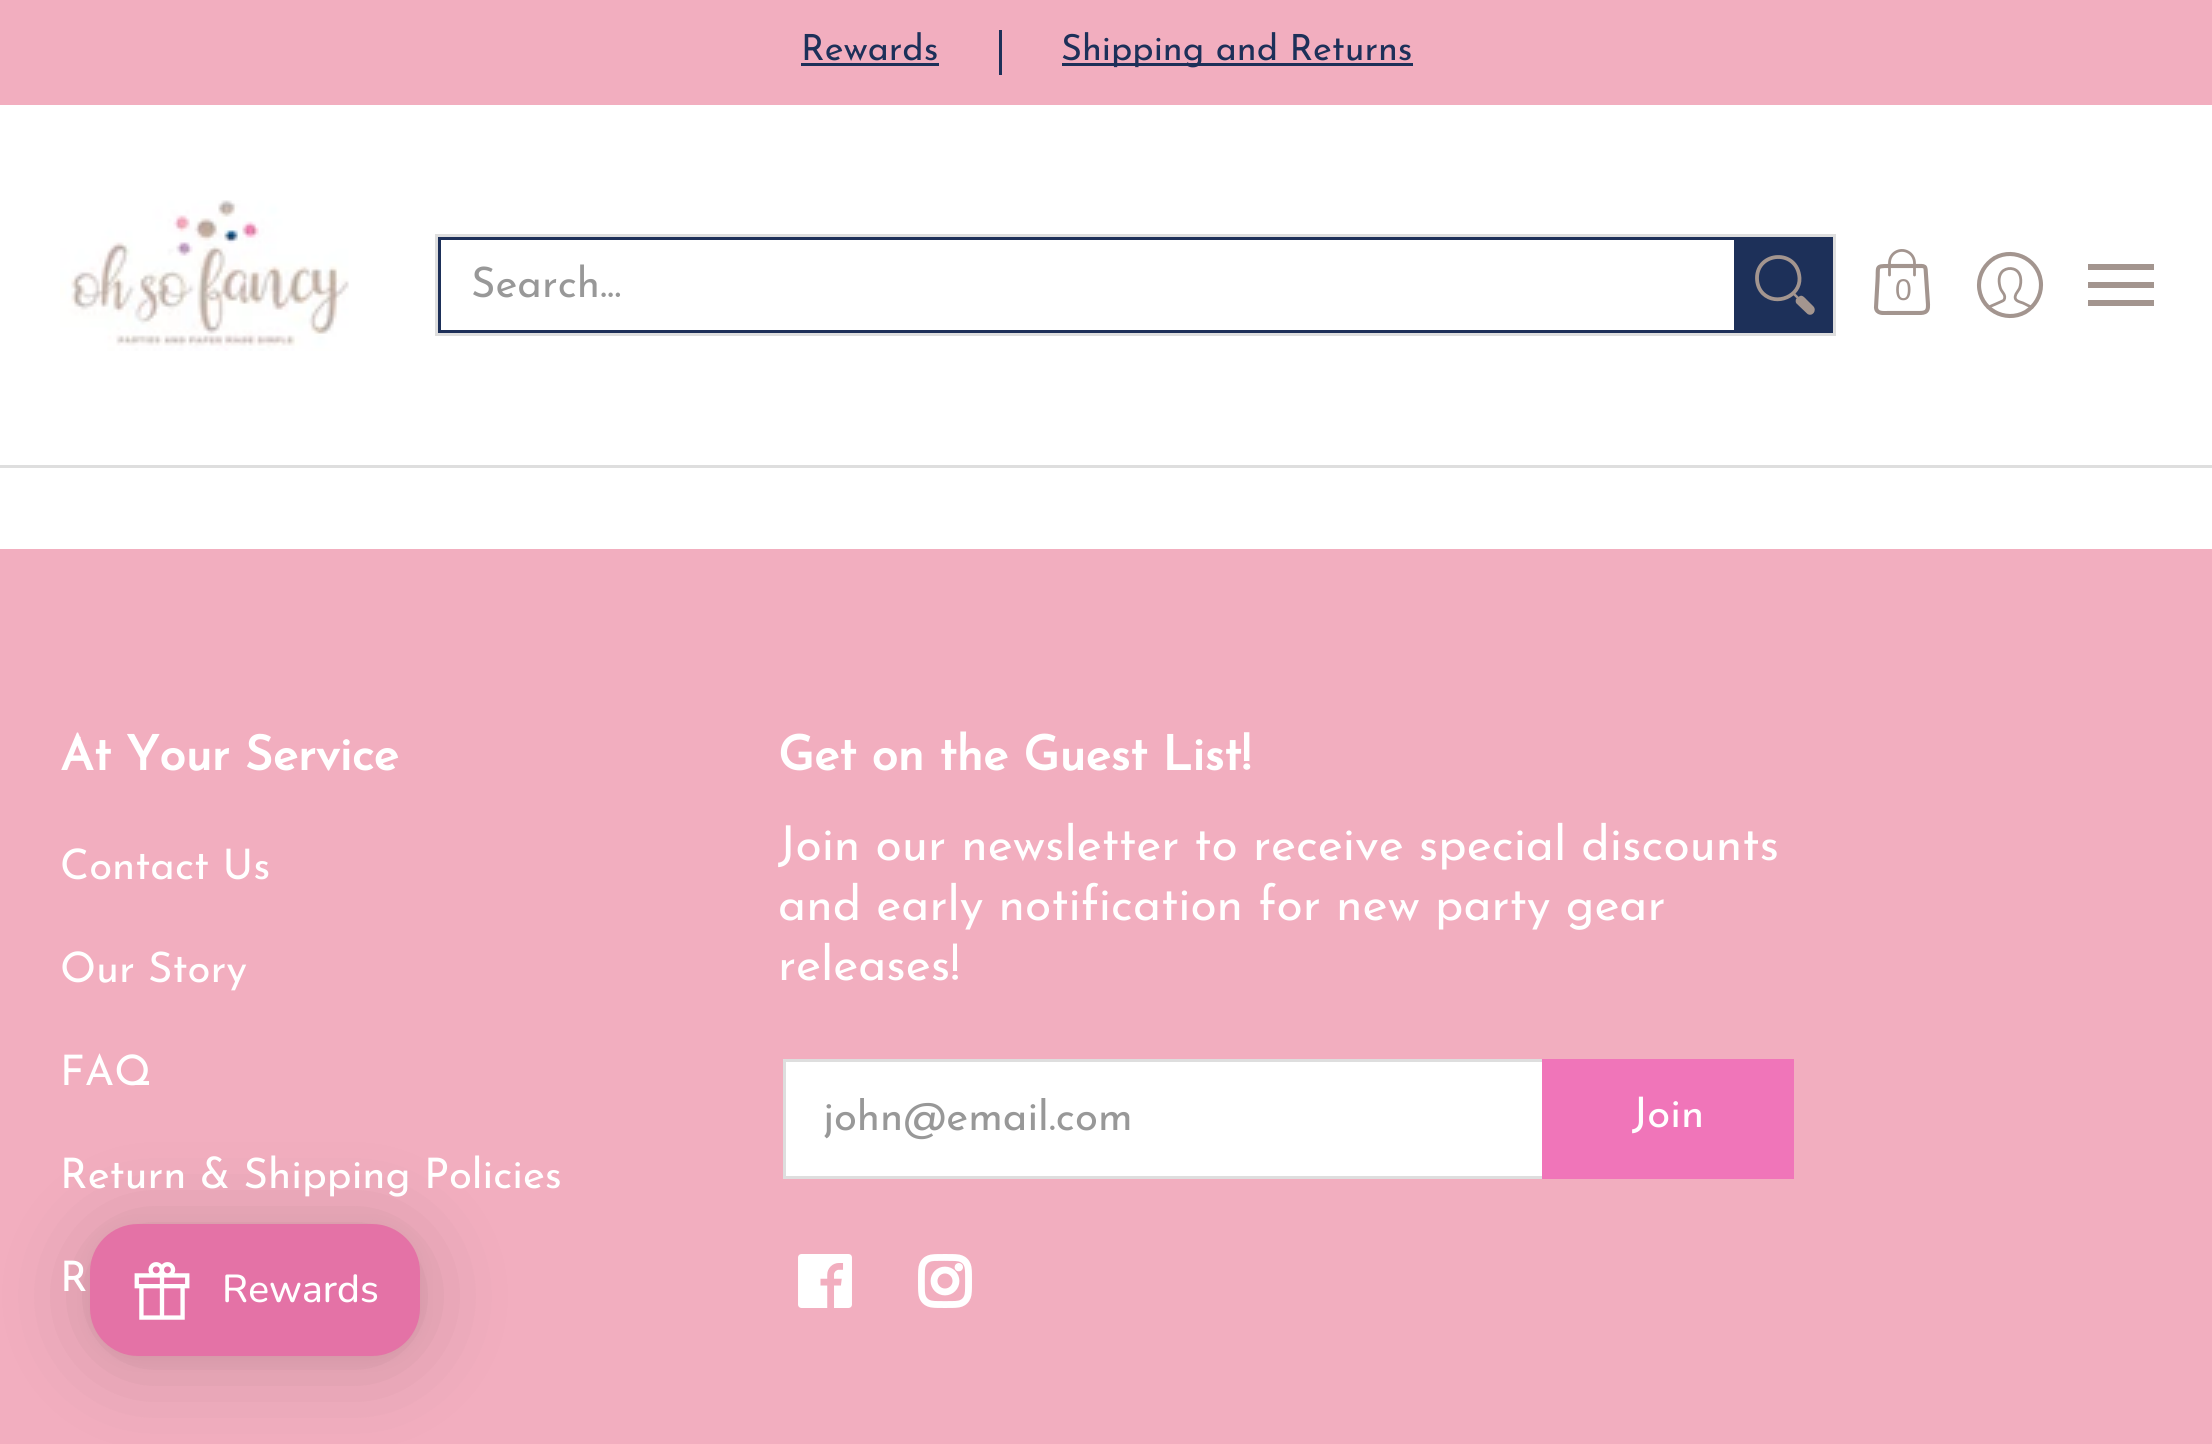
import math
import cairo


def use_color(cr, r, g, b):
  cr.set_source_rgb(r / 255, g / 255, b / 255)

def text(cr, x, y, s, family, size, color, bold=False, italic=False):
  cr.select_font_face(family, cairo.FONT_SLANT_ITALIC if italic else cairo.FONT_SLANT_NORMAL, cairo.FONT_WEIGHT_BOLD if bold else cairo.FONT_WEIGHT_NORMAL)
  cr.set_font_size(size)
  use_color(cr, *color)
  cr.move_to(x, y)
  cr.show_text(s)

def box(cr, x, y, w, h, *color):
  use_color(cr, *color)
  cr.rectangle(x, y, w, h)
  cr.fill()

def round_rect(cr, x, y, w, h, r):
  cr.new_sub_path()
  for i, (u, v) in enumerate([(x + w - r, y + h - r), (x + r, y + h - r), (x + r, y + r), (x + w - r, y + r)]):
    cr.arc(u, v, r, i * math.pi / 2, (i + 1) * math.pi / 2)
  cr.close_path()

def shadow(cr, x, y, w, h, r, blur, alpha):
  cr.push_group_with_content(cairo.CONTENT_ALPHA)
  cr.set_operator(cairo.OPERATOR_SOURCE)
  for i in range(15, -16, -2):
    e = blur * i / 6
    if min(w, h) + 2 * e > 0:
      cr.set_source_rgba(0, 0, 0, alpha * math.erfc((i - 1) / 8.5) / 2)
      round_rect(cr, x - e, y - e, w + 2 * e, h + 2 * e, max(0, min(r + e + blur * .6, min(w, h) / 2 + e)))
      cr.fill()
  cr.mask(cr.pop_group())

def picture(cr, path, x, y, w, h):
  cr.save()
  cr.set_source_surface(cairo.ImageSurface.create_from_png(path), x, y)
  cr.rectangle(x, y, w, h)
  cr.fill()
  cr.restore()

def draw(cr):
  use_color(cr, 255, 255, 255)
  cr.paint()
  box(cr, 0, 0, 2212, 105, 242, 174, 191)
  box(cr, 801, 63, 138, 3, 29, 48, 89)
  box(cr, 999, 30, 3, 45, 29, 48, 89)
  box(cr, 1062, 63, 351, 3, 29, 48, 89)
  box(cr, 0, 465, 2212, 3, 222, 222, 222)
  picture(cr, "img_01.png", 60, 200, 289, 151)
  cr.rectangle(436.5, 235.5, 1398, 99)
  cr.set_line_width(3)
  cr.stroke()
  cr.rectangle(439.5, 238.5, 1296, 93)
  use_color(cr, 29, 48, 89)
  cr.stroke()
  box(cr, 1737, 237, 96, 96, 29, 48, 89)
  cr.new_path()
  cr.move_to(1757, 278)
  cr.curve_to(1757, 284, 1759, 289.5, 1763, 293.5)
  cr.curve_to(1776.5, 306.5, 1800.5, 296, 1799.5, 278)
  cr.curve_to(1797.5, 248.5, 1757, 251.5, 1757, 278)
  cr.close_path()
  use_color(cr, 163, 149, 143)
  cr.set_line_width(3.8)
  cr.set_line_cap(cairo.LINE_CAP_ROUND)
  cr.set_line_join(cairo.LINE_JOIN_ROUND)
  cr.stroke()
  cr.new_path()
  cr.move_to(1792.5, 292.5)
  cr.line_to(1798.5, 298.5)
  cr.set_line_width(2.5)
  cr.set_line_cap(cairo.LINE_CAP_BUTT)
  cr.stroke()
  cr.new_path()
  cr.move_to(1813.5, 306.5)
  cr.curve_to(1817, 310.5, 1812.5, 317, 1807.5, 314)
  cr.line_to(1796.5, 303.5)
  cr.curve_to(1795.5, 302.5, 1795.5, 300.5, 1796, 299)
  cr.line_to(1798, 297.5)
  cr.curve_to(1801.5, 293.5, 1804, 297, 1807, 300)
  cr.close_path()
  cr.fill()
  cr.new_path()
  cr.move_to(1889.5, 275)
  cr.line_to(1889.5, 263)
  cr.curve_to(1889.5, 253, 1900, 247.5, 1908, 252)
  cr.curve_to(1912, 254, 1914.5, 258.5, 1914.5, 263)
  cr.line_to(1914.5, 275)
  cr.set_line_width(2.8)
  cr.set_line_cap(cairo.LINE_CAP_ROUND)
  cr.stroke()
  cr.save()
  cr.rectangle(1869, 249, 66, 66)
  cr.clip()
  cr.new_path()
  cr.move_to(1928, 304.5)
  cr.line_to(1926, 275)
  cr.curve_to(1925.5, 265, 1926, 266, 1916, 266)
  cr.line_to(1888.5, 266)
  cr.curve_to(1875, 266, 1878.5, 266.5, 1877.5, 281)
  cr.line_to(1876, 307.5)
  cr.curve_to(1876.5, 314, 1883.5, 313, 1888, 313)
  cr.line_to(1916, 313)
  cr.curve_to(1923.5, 313, 1928.5, 313.5, 1928, 304.5)
  cr.close_path()
  cr.set_line_width(4.1)
  cr.stroke()
  cr.restore()
  cr.new_path()
  cr.move_to(1979, 285)
  cr.curve_to(1979, 309, 2005, 323.5, 2025.5, 312)
  cr.curve_to(2035, 306, 2041, 296, 2041, 285)
  cr.curve_to(2041, 261, 2015, 246.5, 1994.5, 258)
  cr.curve_to(1985, 264, 1979, 274, 1979, 285)
  cr.close_path()
  cr.set_line_width(4.1)
  cr.stroke()
  cr.new_path()
  cr.move_to(1988, 307.5)
  cr.curve_to(1990.5, 306, 2003.5, 301, 2004, 300)
  cr.curve_to(2006.5, 295, 2002, 292.5, 2000.5, 288.5)
  cr.curve_to(1998.5, 282.5, 1998, 274.5, 2003.5, 270.5)
  cr.curve_to(2006.5, 268.5, 2010, 268, 2013.5, 269)
  cr.curve_to(2021.5, 271.5, 2022, 281.5, 2019.5, 288.5)
  cr.line_to(2016, 294)
  cr.curve_to(2013, 300.5, 2018.5, 301.5, 2023, 303)
  cr.line_to(2032, 307.5)
  cr.set_line_width(2.8)
  cr.stroke()
  box(cr, 2088, 264, 66, 6, 163, 149, 143)
  box(cr, 2088, 300, 66, 6, 163, 149, 143)
  box(cr, 2088, 282, 66, 6, 163, 149, 143)
  box(cr, 0, 549, 2212, 895, 242, 174, 191)
  box(cr, 786, 1062, 756, 114, 255, 255, 255)
  cr.rectangle(784.5, 1060.5, 762, 117)
  use_color(cr, 222, 222, 222)
  cr.set_line_width(3)
  cr.set_line_cap(cairo.LINE_CAP_BUTT)
  cr.set_line_join(cairo.LINE_JOIN_MITER)
  cr.stroke()
  box(cr, 1542, 1059, 252, 120, 240, 117, 185)
  picture(cr, "img_02.png", 798, 1254, 54, 54)
  picture(cr, "img_03.png", 918, 1254, 54, 54)
  use_color(cr, 0, 0, 0)
  shadow(cr, 90, 1230, 330, 132, 48, 48, 0.16)
  shadow(cr, 90, 1227, 330, 132, 48, 9, 0.06)
  use_color(cr, 228, 114, 166)
  round_rect(cr, 90, 1224, 330, 132, 48)
  cr.fill()
  picture(cr, "img_04.png", 134, 1262, 56, 58)
  text(cr, 801, 60, "Rewards", "Josefin Sans Thin", 36, (29, 48, 89))
  text(cr, 1061, 60, "Shipping and Returns", "Josefin Sans Thin", 36, (29, 48, 89))
  text(cr, 471, 297, "Search...", "Josefin Sans Thin", 42, (152, 152, 152))
  text(cr, 1895, 300, "0", "Liberation Sans", 30, (163, 149, 143))
  text(cr, 60, 770, "At Your Service", "Josefin Sans", 48, (255, 255, 255), bold=True)
  text(cr, 60, 879, "Contact Us", "Josefin Sans Thin", 42, (255, 255, 255))
  text(cr, 60, 982, "Our Story", "Josefin Sans Thin", 42, (255, 255, 255))
  text(cr, 60, 1085, "FAQ", "Josefin Sans Thin", 42, (255, 255, 255))
  text(cr, 60, 1188, "Return & Shipping Policies", "Josefin Sans Thin", 42, (255, 255, 255))
  text(cr, 60, 1291, "R", "Josefin Sans Thin", 42, (255, 255, 255))
  text(cr, 778, 770, "Get on the Guest List!", "Josefin Sans", 48, (255, 255, 255), bold=True)
  text(cr, 778, 860, "Join our newsletter to receive special discounts", "Josefin Sans Thin", 48, (255, 255, 255))
  text(cr, 778, 920, "and early notification for new party gear", "Josefin Sans Thin", 48, (255, 255, 255))
  text(cr, 778, 980, "releases!", "Josefin Sans Thin", 48, (255, 255, 255))
  cr.save()
  cr.rectangle(822, 1098, 687, 45)
  cr.clip()
  text(cr, 823, 1130, "john@email.com", "Josefin Sans Thin", 42, (152, 152, 152))
  cr.restore()
  text(cr, 1632, 1127, "Join", "Josefin Sans Thin", 42, (255, 255, 255))
  text(cr, 222, 1302, "Rewards", "Nunito Medium", 39, (255, 255, 255))


surface = cairo.ImageSurface(cairo.FORMAT_RGB24, 2212, 1444)
cr = cairo.Context(surface)
options = cairo.FontOptions()
options.set_hint_metrics(cairo.HINT_METRICS_OFF)
options.set_hint_style(cairo.HINT_STYLE_NONE)
cr.set_font_options(options)
cr.set_miter_limit(4)
draw(cr)
surface.write_to_png("out.png")
